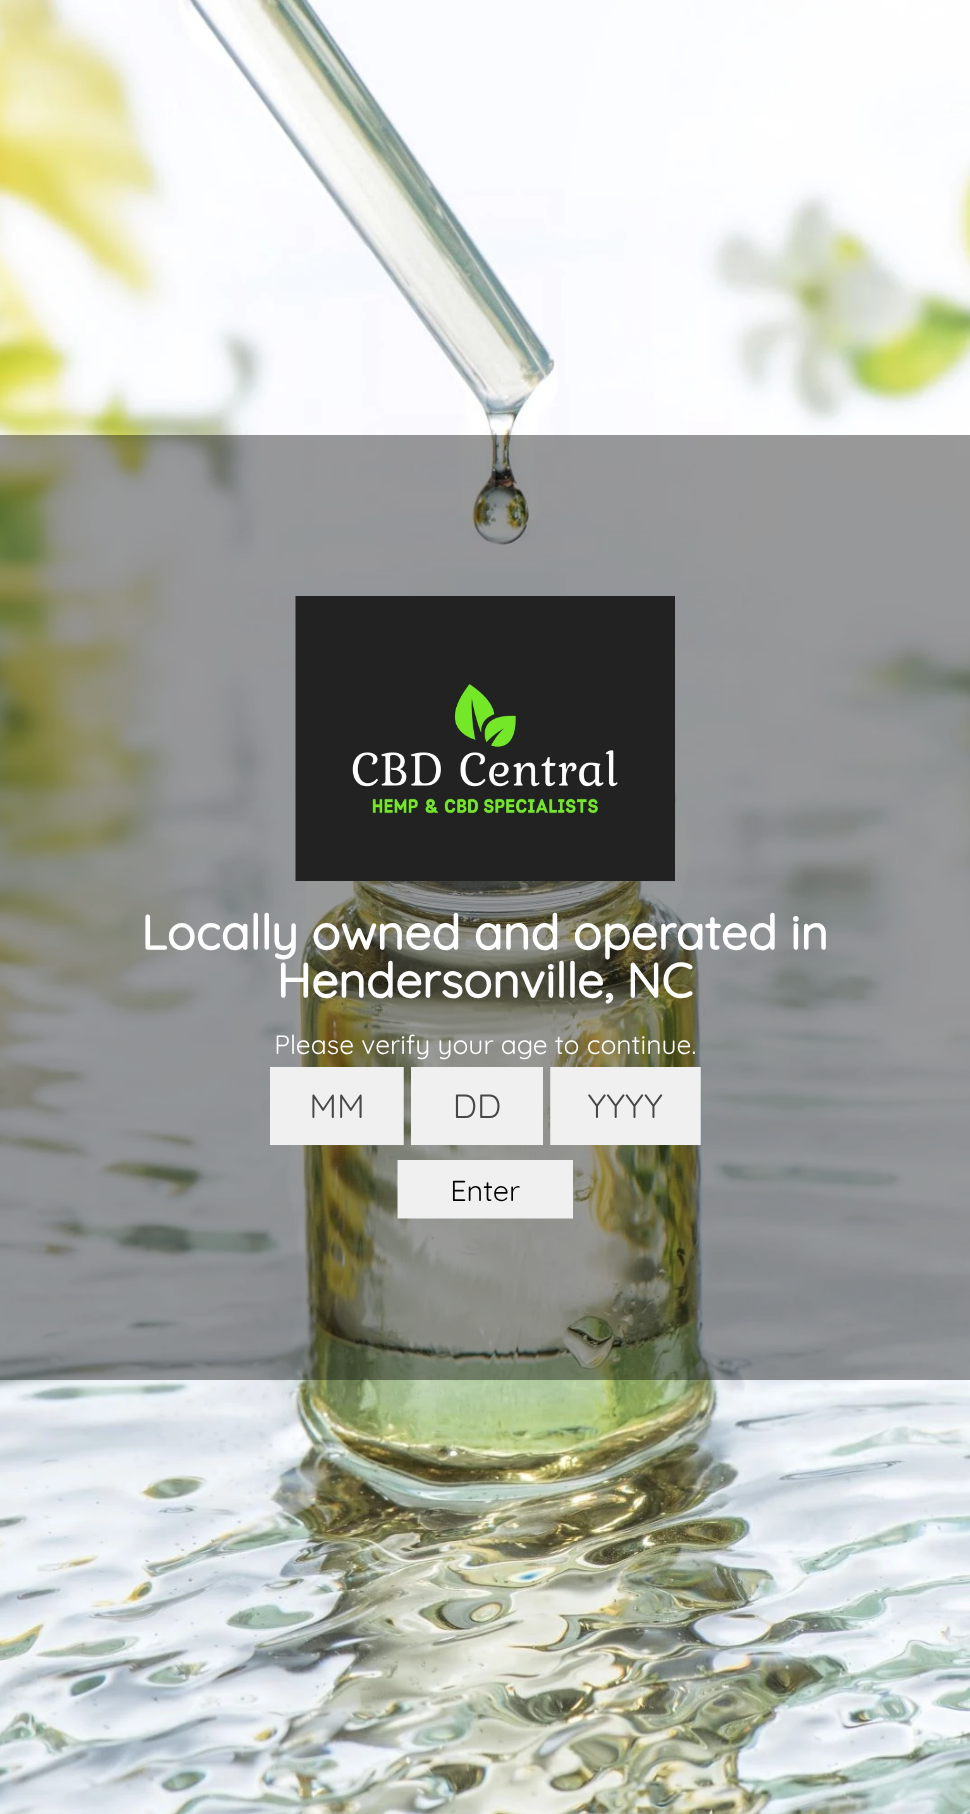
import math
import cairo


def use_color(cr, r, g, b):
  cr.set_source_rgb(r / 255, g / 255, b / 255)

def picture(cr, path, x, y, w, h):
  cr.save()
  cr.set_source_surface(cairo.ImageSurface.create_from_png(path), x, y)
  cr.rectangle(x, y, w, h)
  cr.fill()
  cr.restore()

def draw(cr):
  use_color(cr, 255, 255, 255)
  cr.paint()
  picture(cr, "img_01.png", 0, 0, 970, 1814)
  picture(cr, "img_02.png", 0, 435, 970, 945)


surface = cairo.ImageSurface(cairo.FORMAT_RGB24, 970, 1814)
cr = cairo.Context(surface)
options = cairo.FontOptions()
options.set_hint_metrics(cairo.HINT_METRICS_OFF)
options.set_hint_style(cairo.HINT_STYLE_NONE)
cr.set_font_options(options)
cr.set_miter_limit(4)
draw(cr)
surface.write_to_png("out.png")
